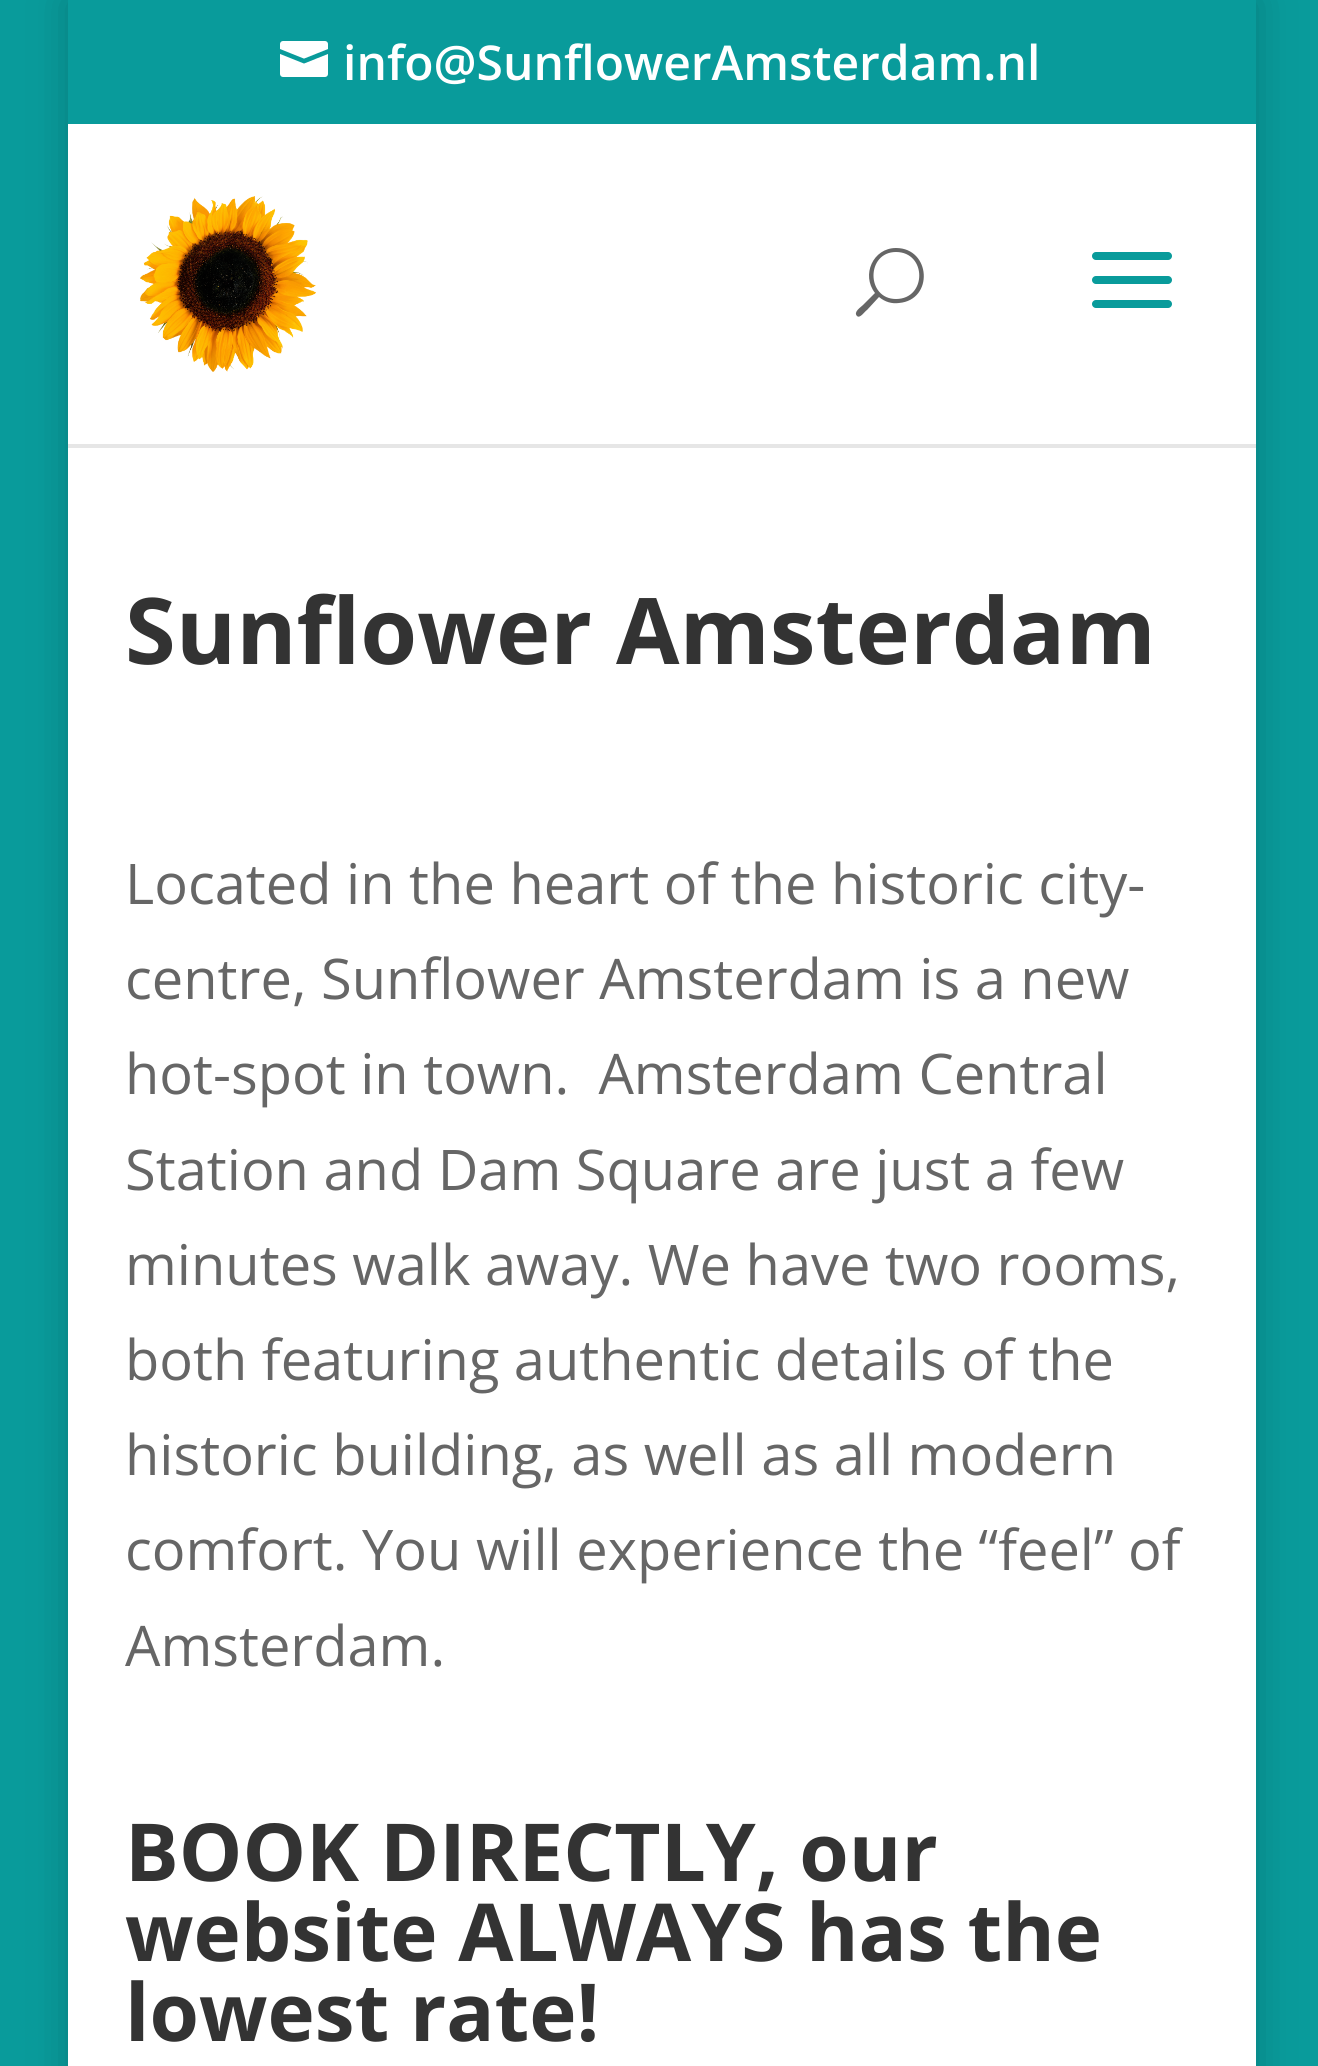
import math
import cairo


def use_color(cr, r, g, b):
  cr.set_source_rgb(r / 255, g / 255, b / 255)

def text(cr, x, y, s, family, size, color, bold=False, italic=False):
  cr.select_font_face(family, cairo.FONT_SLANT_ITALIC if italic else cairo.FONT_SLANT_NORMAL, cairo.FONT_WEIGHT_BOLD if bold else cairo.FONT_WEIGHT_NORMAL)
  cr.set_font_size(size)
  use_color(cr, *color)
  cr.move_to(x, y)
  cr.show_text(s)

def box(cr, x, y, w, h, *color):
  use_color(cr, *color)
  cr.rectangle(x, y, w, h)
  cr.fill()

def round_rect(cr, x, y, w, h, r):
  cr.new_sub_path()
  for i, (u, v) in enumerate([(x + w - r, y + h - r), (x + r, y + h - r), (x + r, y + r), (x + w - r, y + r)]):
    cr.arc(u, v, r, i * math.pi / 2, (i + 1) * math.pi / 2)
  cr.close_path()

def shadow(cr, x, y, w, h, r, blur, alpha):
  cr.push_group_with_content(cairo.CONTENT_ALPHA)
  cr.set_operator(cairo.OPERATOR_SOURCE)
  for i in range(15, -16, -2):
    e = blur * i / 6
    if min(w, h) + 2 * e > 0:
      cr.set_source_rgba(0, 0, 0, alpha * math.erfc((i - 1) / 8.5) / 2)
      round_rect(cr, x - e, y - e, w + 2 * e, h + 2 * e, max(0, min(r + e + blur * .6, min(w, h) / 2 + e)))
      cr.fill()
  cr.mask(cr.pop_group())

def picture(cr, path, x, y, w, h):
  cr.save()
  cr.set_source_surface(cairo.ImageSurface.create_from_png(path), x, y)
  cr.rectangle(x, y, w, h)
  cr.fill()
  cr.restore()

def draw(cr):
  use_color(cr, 9, 155, 155)
  cr.paint()
  cr.save()
  cr.set_fill_rule(cairo.FILL_RULE_EVEN_ODD)
  cr.new_path()
  cr.move_to(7, 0)
  cr.line_to(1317, 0)
  cr.line_to(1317, 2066)
  cr.line_to(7, 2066)
  cr.close_path()
  cr.move_to(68, 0)
  cr.line_to(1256, 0)
  cr.line_to(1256, 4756)
  cr.line_to(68, 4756)
  cr.close_path()
  cr.clip()
  use_color(cr, 0, 0, 0)
  shadow(cr, 68, 0, 1188, 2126, 0, 20, 0.2)
  cr.restore()
  picture(cr, "img_01.png", 280, 41, 48, 36)
  box(cr, 68, 444, 1188, 4, 230, 230, 230)
  box(cr, 68, 124, 1188, 320, 255, 255, 255)
  picture(cr, "img_02.png", 140, 196, 176, 176)
  use_color(cr, 102, 102, 102)
  cr.new_path()
  cr.move_to(896, 248)
  cr.curve_to(873, 248, 861, 275, 875, 293)
  cr.line_to(863, 305)
  cr.curve_to(861, 307, 853, 312, 857, 316)
  cr.curve_to(860, 319, 865, 311, 867, 310)
  cr.line_to(879, 297)
  cr.curve_to(885, 302, 892, 304, 899, 303)
  cr.curve_to(934, 300, 931, 248, 896, 248)
  cr.close_path()
  cr.move_to(896, 299)
  cr.curve_to(866, 299, 866, 252, 896, 252)
  cr.curve_to(927, 252, 927, 299, 896, 299)
  cr.close_path()
  cr.fill()
  picture(cr, "img_03.png", 1092, 252, 80, 56)
  box(cr, 68, 448, 1188, 1618, 255, 255, 255)
  text(cr, 343, 80, "info@SunflowerAmsterdam.nl", "Open Sans SemiBold", 48, (255, 255, 255))
  text(cr, 125, 664, "Sunflower Amsterdam", "Open Sans", 92, (51, 51, 51), bold=True)
  text(cr, 125, 904, "Located in the heart of the historic city-", "Open Sans", 56, (102, 102, 102))
  text(cr, 125, 999, "centre, Sunflower Amsterdam is a new", "Open Sans", 56, (102, 102, 102))
  text(cr, 125, 1094, "hot-spot in town.  Amsterdam Central", "Open Sans", 56, (102, 102, 102))
  text(cr, 125, 1190, "Station and Dam Square are just a few", "Open Sans", 56, (102, 102, 102))
  text(cr, 125, 1285, "minutes walk away. We have two rooms,", "Open Sans", 56, (102, 102, 102))
  text(cr, 125, 1380, "both featuring authentic details of the", "Open Sans", 56, (102, 102, 102))
  text(cr, 125, 1475, "historic building, as well as all modern", "Open Sans", 56, (102, 102, 102))
  text(cr, 125, 1570, "comfort. You will experience the “feel” of", "Open Sans", 56, (102, 102, 102))
  text(cr, 125, 1666, "Amsterdam.", "Open Sans", 56, (102, 102, 102))
  text(cr, 125, 1881, "BOOK DIRECTLY, our", "Open Sans", 80, (51, 51, 51), bold=True)
  text(cr, 125, 1961, "website ALWAYS has the", "Open Sans", 80, (51, 51, 51), bold=True)
  text(cr, 125, 2041, "lowest rate!", "Open Sans", 80, (51, 51, 51), bold=True)


surface = cairo.ImageSurface(cairo.FORMAT_RGB24, 1318, 2066)
cr = cairo.Context(surface)
options = cairo.FontOptions()
options.set_hint_metrics(cairo.HINT_METRICS_OFF)
options.set_hint_style(cairo.HINT_STYLE_NONE)
cr.set_font_options(options)
cr.set_miter_limit(4)
draw(cr)
surface.write_to_png("out.png")
